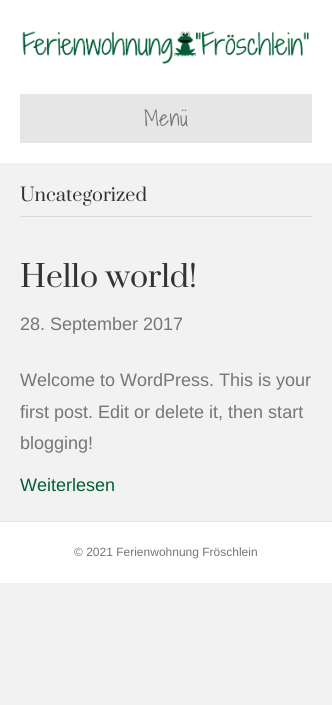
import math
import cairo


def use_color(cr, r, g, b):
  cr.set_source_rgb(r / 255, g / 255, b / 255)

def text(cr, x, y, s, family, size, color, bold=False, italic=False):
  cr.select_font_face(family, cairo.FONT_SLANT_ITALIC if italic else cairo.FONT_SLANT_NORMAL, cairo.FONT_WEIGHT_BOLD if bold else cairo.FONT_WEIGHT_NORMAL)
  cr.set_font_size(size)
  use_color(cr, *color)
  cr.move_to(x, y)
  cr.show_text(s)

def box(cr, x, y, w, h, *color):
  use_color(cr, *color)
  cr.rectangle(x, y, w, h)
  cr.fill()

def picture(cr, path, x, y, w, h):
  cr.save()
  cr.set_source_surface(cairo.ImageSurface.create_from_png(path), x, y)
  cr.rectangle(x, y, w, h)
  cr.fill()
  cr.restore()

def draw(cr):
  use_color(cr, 242, 242, 242)
  cr.paint()
  box(cr, 0, 0, 332, 163, 255, 255, 255)
  picture(cr, "img_01.png", 22, 31, 287, 33)
  box(cr, 20, 94, 292, 49, 230, 230, 230)
  box(cr, 20, 216, 292, 1, 217, 217, 217)
  box(cr, 0, 522, 332, 61, 255, 255, 255)
  box(cr, 0, 521, 332, 1, 230, 230, 230)
  text(cr, 144, 126, "Menü", "Shadows Into Light Light", 22, (117, 117, 117))
  text(cr, 20, 201, "Uncategorized", "Prata", 18, (51, 51, 51))
  text(cr, 20, 287, "Hello world!", "Prata", 30, (51, 51, 51))
  text(cr, 20, 330, "28. September 2017", "Liberation Sans", 18, (117, 117, 117))
  text(cr, 20, 386, "Welcome to WordPress. This is your", "Liberation Sans", 18, (117, 117, 117))
  text(cr, 20, 418, "first post. Edit or delete it, then start", "Liberation Sans", 18, (117, 117, 117))
  text(cr, 20, 449, "blogging!", "Liberation Sans", 18, (117, 117, 117))
  text(cr, 20, 491, "Weiterlesen", "Liberation Sans", 18, (0, 94, 54))
  text(cr, 74, 556, "© 2021 Ferienwohnung Fröschlein", "Liberation Sans", 12, (117, 117, 117))


surface = cairo.ImageSurface(cairo.FORMAT_RGB24, 332, 705)
cr = cairo.Context(surface)
options = cairo.FontOptions()
options.set_hint_metrics(cairo.HINT_METRICS_OFF)
options.set_hint_style(cairo.HINT_STYLE_NONE)
cr.set_font_options(options)
cr.set_miter_limit(4)
draw(cr)
surface.write_to_png("out.png")
